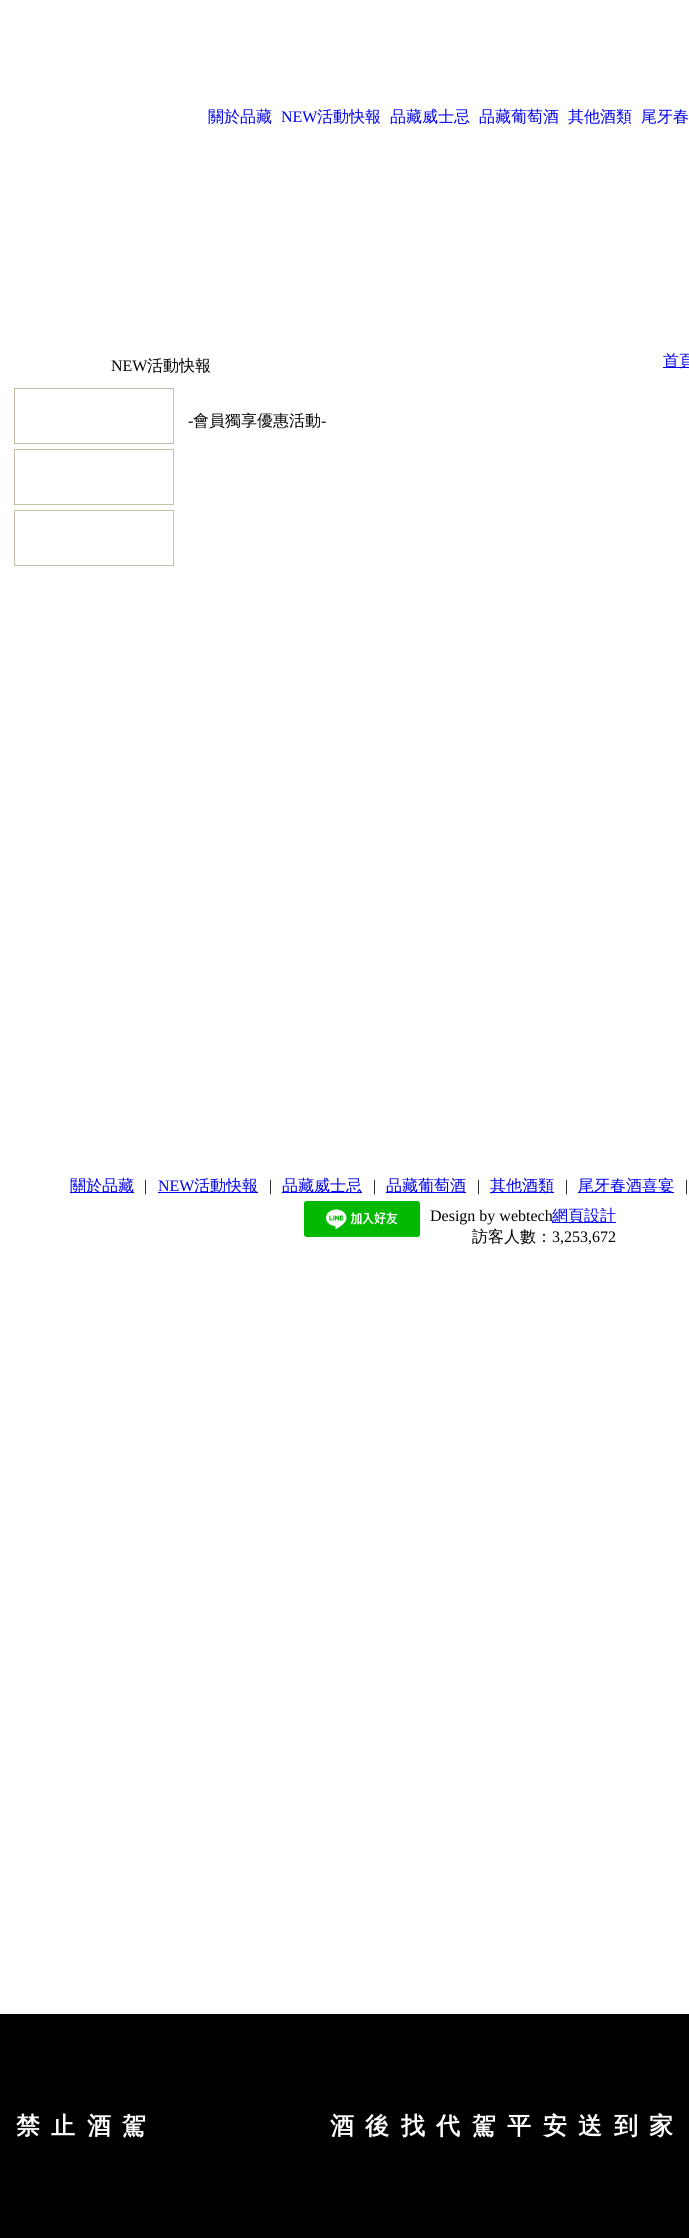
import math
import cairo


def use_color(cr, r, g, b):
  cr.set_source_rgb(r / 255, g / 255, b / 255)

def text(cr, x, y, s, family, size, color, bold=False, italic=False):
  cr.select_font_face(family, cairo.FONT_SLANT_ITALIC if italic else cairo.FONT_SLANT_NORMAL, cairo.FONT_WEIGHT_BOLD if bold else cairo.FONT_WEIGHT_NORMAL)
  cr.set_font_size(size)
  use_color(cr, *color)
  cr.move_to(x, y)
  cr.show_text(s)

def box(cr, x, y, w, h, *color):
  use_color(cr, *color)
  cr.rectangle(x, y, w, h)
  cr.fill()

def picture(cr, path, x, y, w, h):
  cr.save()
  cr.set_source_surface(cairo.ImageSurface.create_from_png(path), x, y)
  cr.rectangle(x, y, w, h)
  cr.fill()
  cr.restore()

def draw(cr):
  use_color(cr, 255, 255, 255)
  cr.paint()
  box(cr, 663, 367, 26, 1, 0, 0, 238)
  cr.rectangle(14.5, 388.5, 159, 55)
  use_color(cr, 197, 191, 167)
  cr.set_line_width(1)
  cr.stroke()
  cr.rectangle(14.5, 449.5, 159, 55)
  cr.stroke()
  cr.rectangle(14.5, 510.5, 159, 55)
  cr.stroke()
  box(cr, 70, 1192, 64, 1, 0, 0, 238)
  box(cr, 158, 1192, 100, 1, 0, 0, 238)
  box(cr, 282, 1192, 80, 1, 0, 0, 238)
  box(cr, 386, 1192, 80, 1, 0, 0, 238)
  box(cr, 490, 1192, 64, 1, 0, 0, 238)
  box(cr, 578, 1192, 96, 1, 0, 0, 238)
  picture(cr, "img_01.png", 304, 1201, 116, 36)
  box(cr, 0, 2014, 689, 224, 0, 0, 0)
  text(cr, 208, 122, "關於品藏", "WenQuanYi Zen Hei Medium", 16, (0, 0, 238))
  text(cr, 281, 122, "NEW", "Liberation Serif", 16, (0, 0, 238))
  text(cr, 317, 122, "活動快報", "WenQuanYi Zen Hei Medium", 16, (0, 0, 238))
  text(cr, 390, 122, "品藏威士忌", "WenQuanYi Zen Hei Medium", 16, (0, 0, 238))
  text(cr, 479, 122, "品藏葡萄酒", "WenQuanYi Zen Hei Medium", 16, (0, 0, 238))
  text(cr, 568, 122, "其他酒類", "WenQuanYi Zen Hei Medium", 16, (0, 0, 238))
  text(cr, 641, 122, "尾牙春", "WenQuanYi Zen Hei Medium", 16, (0, 0, 238))
  text(cr, 111, 371, "NEW", "Liberation Serif", 16, (0, 0, 0))
  text(cr, 147, 371, "活動快報", "WenQuanYi Zen Hei Medium", 16, (0, 0, 0))
  text(cr, 663, 366, "首頁", "WenQuanYi Zen Hei Medium", 16, (0, 0, 238))
  text(cr, 188, 426, "-", "Liberation Serif", 16, (0, 0, 0))
  text(cr, 193, 426, "會員獨享優惠活動", "WenQuanYi Zen Hei Medium", 16, (0, 0, 0))
  text(cr, 321, 426, "-", "Liberation Serif", 16, (0, 0, 0))
  text(cr, 70, 1191, "關於品藏", "WenQuanYi Zen Hei Medium", 16, (0, 0, 238))
  text(cr, 144, 1191, "|", "Liberation Serif", 16, (0, 0, 0))
  text(cr, 158, 1191, "NEW", "Liberation Serif", 16, (0, 0, 238))
  text(cr, 194, 1191, "活動快報", "WenQuanYi Zen Hei Medium", 16, (0, 0, 238))
  text(cr, 269, 1191, "|", "Liberation Serif", 16, (0, 0, 0))
  text(cr, 282, 1191, "品藏威士忌", "WenQuanYi Zen Hei Medium", 16, (0, 0, 238))
  text(cr, 373, 1191, "|", "Liberation Serif", 16, (0, 0, 0))
  text(cr, 386, 1191, "品藏葡萄酒", "WenQuanYi Zen Hei Medium", 16, (0, 0, 238))
  text(cr, 477, 1191, "|", "Liberation Serif", 16, (0, 0, 0))
  text(cr, 490, 1191, "其他酒類", "WenQuanYi Zen Hei Medium", 16, (0, 0, 238))
  text(cr, 565, 1191, "|", "Liberation Serif", 16, (0, 0, 0))
  text(cr, 578, 1191, "尾牙春酒喜宴", "WenQuanYi Zen Hei Medium", 16, (0, 0, 238))
  text(cr, 685, 1191, "|", "Liberation Serif", 16, (0, 0, 0))
  text(cr, 430, 1221, "Design by webtech", "Liberation Serif", 16, (0, 0, 0))
  box(cr, 552, 1222, 64, 1, 0, 0, 238)
  text(cr, 552, 1221, "網頁設計", "WenQuanYi Zen Hei Medium", 16, (0, 0, 238))
  text(cr, 472, 1242, "訪客人數：", "WenQuanYi Zen Hei Medium", 16, (0, 0, 0))
  text(cr, 552, 1242, "3,253,672", "Liberation Serif", 16, (0, 0, 0))
  text(cr, 16, 2134, "禁", "WenQuanYi Zen Hei", 24, (255, 255, 255), bold=True)
  text(cr, 51, 2134, "止", "WenQuanYi Zen Hei", 24, (255, 255, 255), bold=True)
  text(cr, 87, 2134, "酒", "WenQuanYi Zen Hei", 24, (255, 255, 255), bold=True)
  text(cr, 122, 2134, "駕", "WenQuanYi Zen Hei", 24, (255, 255, 255), bold=True)
  text(cr, 330, 2134, "酒", "WenQuanYi Zen Hei", 24, (255, 255, 255), bold=True)
  text(cr, 365, 2134, "後", "WenQuanYi Zen Hei", 24, (255, 255, 255), bold=True)
  text(cr, 401, 2134, "找", "WenQuanYi Zen Hei", 24, (255, 255, 255), bold=True)
  text(cr, 436, 2134, "代", "WenQuanYi Zen Hei", 24, (255, 255, 255), bold=True)
  text(cr, 472, 2134, "駕", "WenQuanYi Zen Hei", 24, (255, 255, 255), bold=True)
  text(cr, 507, 2134, "平", "WenQuanYi Zen Hei", 24, (255, 255, 255), bold=True)
  text(cr, 543, 2134, "安", "WenQuanYi Zen Hei", 24, (255, 255, 255), bold=True)
  text(cr, 578, 2134, "送", "WenQuanYi Zen Hei", 24, (255, 255, 255), bold=True)
  text(cr, 614, 2134, "到", "WenQuanYi Zen Hei", 24, (255, 255, 255), bold=True)
  text(cr, 649, 2134, "家", "WenQuanYi Zen Hei", 24, (255, 255, 255), bold=True)


surface = cairo.ImageSurface(cairo.FORMAT_RGB24, 689, 2238)
cr = cairo.Context(surface)
options = cairo.FontOptions()
options.set_hint_metrics(cairo.HINT_METRICS_OFF)
options.set_hint_style(cairo.HINT_STYLE_NONE)
cr.set_font_options(options)
cr.set_miter_limit(4)
draw(cr)
surface.write_to_png("out.png")
